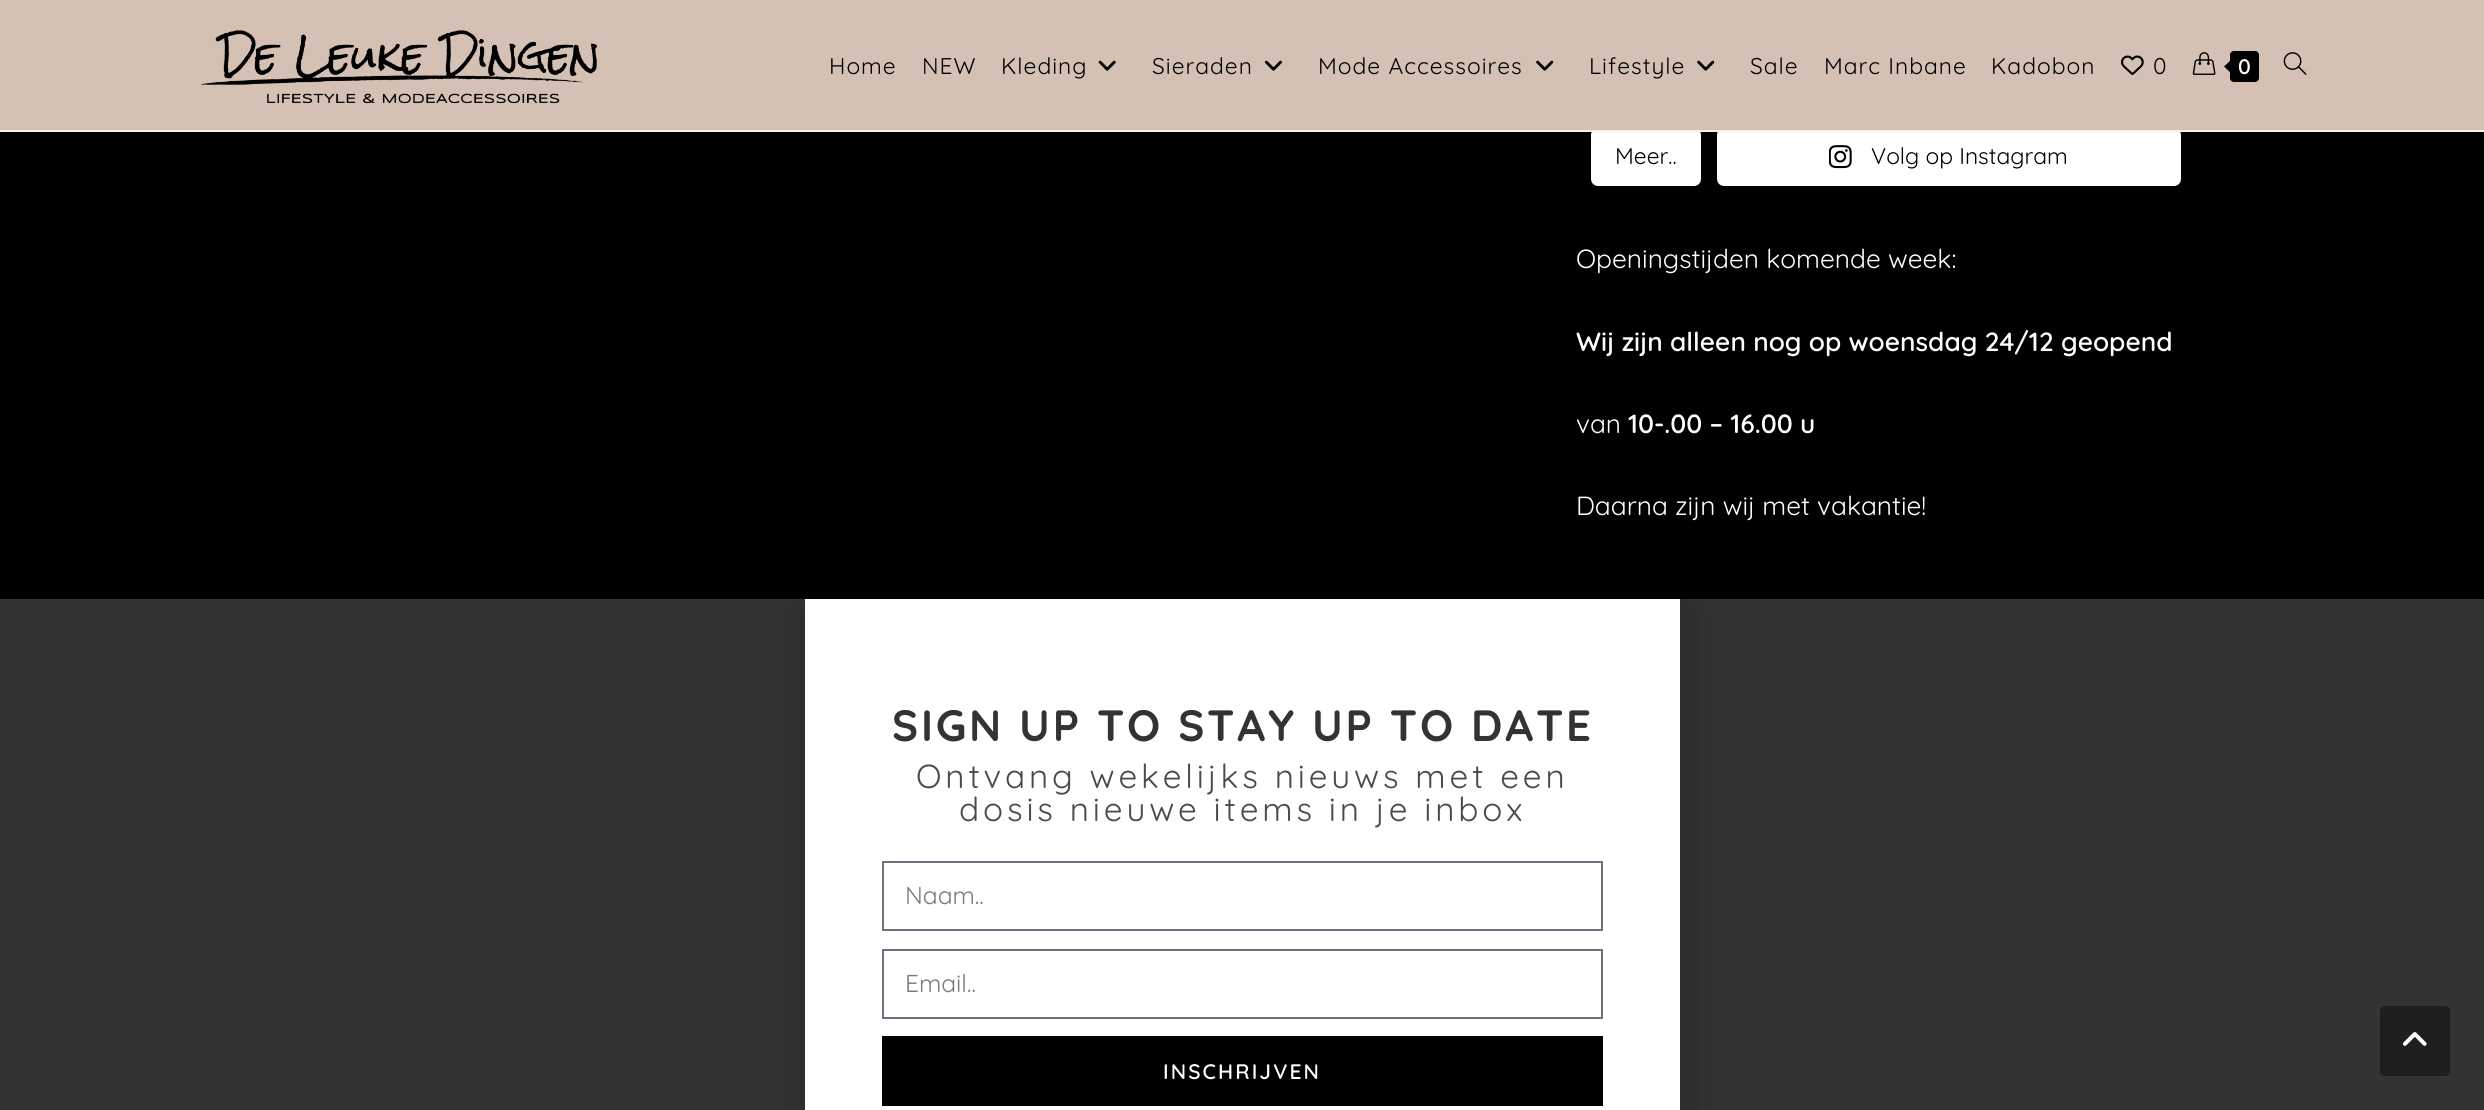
import math
import cairo


def use_color(cr, r, g, b):
  cr.set_source_rgb(r / 255, g / 255, b / 255)

def text(cr, x, y, s, family, size, color, bold=False, italic=False):
  cr.select_font_face(family, cairo.FONT_SLANT_ITALIC if italic else cairo.FONT_SLANT_NORMAL, cairo.FONT_WEIGHT_BOLD if bold else cairo.FONT_WEIGHT_NORMAL)
  cr.set_font_size(size)
  use_color(cr, *color)
  cr.move_to(x, y)
  cr.show_text(s)

def spaced_text(cr, x, y, s, letter, word):
  cr.move_to(x, y)
  for ch in s:
    cr.show_text(ch)
    cr.rel_move_to(letter + word * (ch == ' '), 0)

def box(cr, x, y, w, h, *color):
  use_color(cr, *color)
  cr.rectangle(x, y, w, h)
  cr.fill()

def round_rect(cr, x, y, w, h, r):
  cr.new_sub_path()
  for i, (u, v) in enumerate([(x + w - r, y + h - r), (x + r, y + h - r), (x + r, y + r), (x + w - r, y + r)]):
    cr.arc(u, v, r, i * math.pi / 2, (i + 1) * math.pi / 2)
  cr.close_path()

def shadow(cr, x, y, w, h, r, blur, alpha):
  cr.push_group_with_content(cairo.CONTENT_ALPHA)
  cr.set_operator(cairo.OPERATOR_SOURCE)
  for i in range(15, -16, -2):
    e = blur * i / 6
    if min(w, h) + 2 * e > 0:
      cr.set_source_rgba(0, 0, 0, alpha * math.erfc((i - 1) / 8.5) / 2)
      round_rect(cr, x - e, y - e, w + 2 * e, h + 2 * e, max(0, min(r + e + blur * .6, min(w, h) / 2 + e)))
      cr.fill()
  cr.mask(cr.pop_group())

def picture(cr, path, x, y, w, h):
  cr.save()
  cr.set_source_surface(cairo.ImageSurface.create_from_png(path), x, y)
  cr.rectangle(x, y, w, h)
  cr.fill()
  cr.restore()

def draw(cr):
  use_color(cr, 51, 51, 51)
  cr.paint()
  use_color(cr, 0, 0, 0)
  shadow(cr, 803, 607, 886, 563, 0, 20, 0.2)
  box(cr, 0, 132, 2484, 467, 0, 0, 0)
  use_color(cr, 255, 255, 255)
  round_rect(cr, 1591, 128, 110, 58, 7)
  cr.fill()
  round_rect(cr, 1717, 128, 464, 58, 7)
  cr.fill()
  box(cr, 0, 0, 2484, 130, 213, 193, 180)
  box(cr, 0, 130, 2484, 2, 241, 241, 241)
  picture(cr, "img_01.png", 201, 30, 396, 74)
  picture(cr, "img_02.png", 1098, 60, 18, 11)
  picture(cr, "img_03.png", 1264, 60, 18, 11)
  picture(cr, "img_04.png", 1536, 60, 18, 11)
  picture(cr, "img_04.png", 1697, 60, 18, 11)
  picture(cr, "img_05.png", 2121, 55, 23, 20)
  picture(cr, "img_06.png", 2192, 52, 24, 23)
  use_color(cr, 0, 0, 0)
  round_rect(cr, 2230, 51, 29, 31, 4)
  cr.fill()
  cr.new_path()
  cr.move_to(2233, 58)
  cr.line_to(2233, 75)
  cr.line_to(2224, 66.5)
  cr.close_path()
  cr.fill()
  picture(cr, "img_07.png", 2283, 52, 24, 23)
  picture(cr, "img_08.png", 1829, 145, 23, 24)
  box(cr, 805, 599, 875, 511, 255, 255, 255)
  cr.rectangle(883, 862, 719, 68)
  use_color(cr, 105, 114, 125)
  cr.stroke()
  cr.rectangle(883, 950, 719, 68)
  cr.stroke()
  box(cr, 882, 1036, 721, 70, 0, 0, 0)
  use_color(cr, 31, 31, 31)
  round_rect(cr, 2380, 1006, 70, 70, 4)
  cr.fill()
  picture(cr, "img_09.png", 2403, 1032, 24, 14)
  cr.select_font_face("Quicksand")
  cr.set_font_size(22.75)
  use_color(cr, 0, 0, 0)
  spaced_text(cr, 829, 74, "Home", 1, 0)
  spaced_text(cr, 922, 74, "NEW", 1, 0)
  spaced_text(cr, 1001, 74, "Kleding", 1, 0)
  spaced_text(cr, 1152, 74, "Sieraden", 1, 0)
  spaced_text(cr, 1318, 74, "Mode Accessoires", 1, 0)
  spaced_text(cr, 1589, 74, "Lifestyle", 1, 0)
  spaced_text(cr, 1750, 74, "Sale", 1, 0)
  spaced_text(cr, 1824, 74, "Marc Inbane", 1, 0)
  spaced_text(cr, 1991, 74, "Kadobon", 1, 0)
  spaced_text(cr, 2153, 74, "0", 1, 0)
  text(cr, 2238, 74, "0", "Quicksand SemiBold", 21, (255, 255, 255))
  text(cr, 1615, 164, "Meer..", "Quicksand", 22.75, (0, 0, 0))
  text(cr, 1871, 164, "Volg op Instagram", "Quicksand", 22.75, (0, 0, 0))
  text(cr, 1576, 268, "Openingstijden komende week:", "Quicksand", 26.25, (255, 255, 255))
  text(cr, 1576, 351, "Wij zijn alleen nog op woensdag 24/12 geopend", "Quicksand SemiBold", 26.25, (255, 255, 255))
  text(cr, 1576, 433, "van", "Quicksand", 26.25, (255, 255, 255))
  text(cr, 1628, 433, "10-.00 – 16.00 u", "Quicksand SemiBold", 26.25, (255, 255, 255))
  text(cr, 1576, 515, "Daarna zijn wij met vakantie!", "Quicksand", 26.25, (255, 255, 255))
  cr.select_font_face("Quicksand", cairo.FONT_SLANT_NORMAL, cairo.FONT_WEIGHT_BOLD)
  cr.set_font_size(43.75)
  use_color(cr, 51, 51, 51)
  spaced_text(cr, 892, 741, "SIGN UP TO STAY UP TO DATE", 2.8, 0)
  cr.select_font_face("Quicksand")
  cr.set_font_size(33.25)
  use_color(cr, 74, 74, 74)
  spaced_text(cr, 916, 788, "Ontvang wekelijks nieuws met een", 3.85, 0)
  spaced_text(cr, 959, 821, "dosis nieuwe items in je inbox", 3.85, 0)
  text(cr, 905, 904, "Naam..", "Quicksand", 24.5, (121, 122, 124))
  text(cr, 905, 992, "Email..", "Quicksand", 24.5, (121, 122, 124))
  cr.select_font_face("Quicksand SemiBold")
  cr.set_font_size(21)
  use_color(cr, 255, 255, 255)
  spaced_text(cr, 1163, 1079, "INSCHRIJVEN", 2.1, 0)


surface = cairo.ImageSurface(cairo.FORMAT_RGB24, 2484, 1110)
cr = cairo.Context(surface)
options = cairo.FontOptions()
options.set_hint_metrics(cairo.HINT_METRICS_OFF)
options.set_hint_style(cairo.HINT_STYLE_NONE)
cr.set_font_options(options)
cr.set_miter_limit(4)
draw(cr)
surface.write_to_png("out.png")
